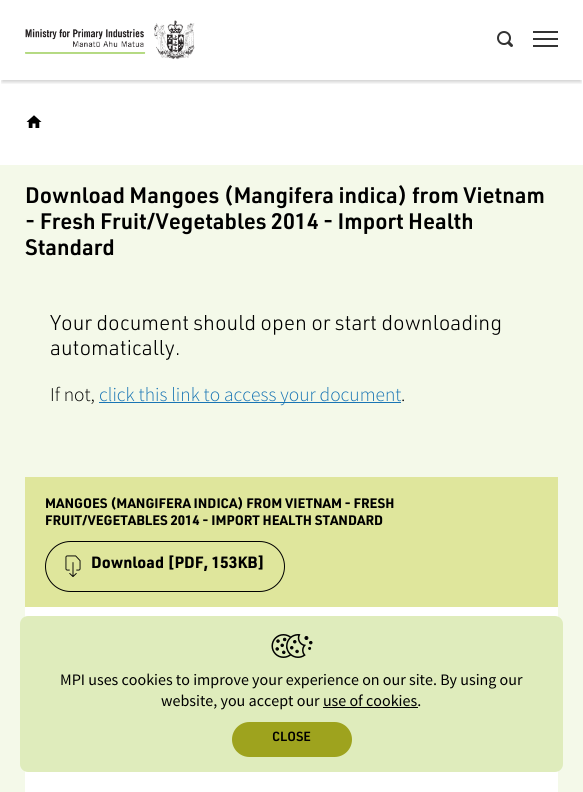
import math
import cairo


def use_color(cr, r, g, b):
  cr.set_source_rgb(r / 255, g / 255, b / 255)

def text(cr, x, y, s, family, size, color, bold=False, italic=False):
  cr.select_font_face(family, cairo.FONT_SLANT_ITALIC if italic else cairo.FONT_SLANT_NORMAL, cairo.FONT_WEIGHT_BOLD if bold else cairo.FONT_WEIGHT_NORMAL)
  cr.set_font_size(size)
  use_color(cr, *color)
  cr.move_to(x, y)
  cr.show_text(s)

def box(cr, x, y, w, h, *color):
  use_color(cr, *color)
  cr.rectangle(x, y, w, h)
  cr.fill()

def round_rect(cr, x, y, w, h, r):
  cr.new_sub_path()
  for i, (u, v) in enumerate([(x + w - r, y + h - r), (x + r, y + h - r), (x + r, y + r), (x + w - r, y + r)]):
    cr.arc(u, v, r, i * math.pi / 2, (i + 1) * math.pi / 2)
  cr.close_path()

def shadow(cr, x, y, w, h, r, blur, alpha):
  cr.push_group_with_content(cairo.CONTENT_ALPHA)
  cr.set_operator(cairo.OPERATOR_SOURCE)
  for i in range(15, -16, -2):
    e = blur * i / 6
    if min(w, h) + 2 * e > 0:
      cr.set_source_rgba(0, 0, 0, alpha * math.erfc((i - 1) / 8.5) / 2)
      round_rect(cr, x - e, y - e, w + 2 * e, h + 2 * e, max(0, min(r + e + blur * .6, min(w, h) / 2 + e)))
      cr.fill()
  cr.mask(cr.pop_group())

def picture(cr, path, x, y, w, h):
  cr.save()
  cr.set_source_surface(cairo.ImageSurface.create_from_png(path), x, y)
  cr.rectangle(x, y, w, h)
  cr.fill()
  cr.restore()

def draw(cr):
  use_color(cr, 255, 255, 255)
  cr.paint()
  cr.save()
  cr.rectangle(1, 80, 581, 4)
  cr.clip()
  use_color(cr, 0, 0, 0)
  shadow(cr, 2, 6, 579, 76, 0, 2, 0.1)
  shadow(cr, 2, 6, 579, 76, 0, 2, 0.1)
  cr.restore()
  picture(cr, "img_01.png", 25, 20, 170, 40)
  picture(cr, "img_02.png", 497, 31, 16, 16)
  box(cr, 533, 31, 25, 2, 51, 51, 51)
  box(cr, 533, 38, 25, 2, 51, 51, 51)
  box(cr, 533, 45, 25, 2, 51, 51, 51)
  picture(cr, "img_03.png", 26, 115, 16, 13)
  box(cr, 0, 165, 583, 627, 244, 249, 233)
  box(cr, 99, 402, 302, 1, 24, 117, 180)
  box(cr, 25, 477, 533, 130, 223, 230, 156)
  round_rect(cr, 45.5, 541.5, 239, 50, 25)
  use_color(cr, 0, 0, 0)
  cr.set_line_width(1)
  cr.stroke()
  picture(cr, "img_04.png", 65, 555, 16, 22)
  box(cr, 25, 607, 533, 185, 255, 255, 255)
  use_color(cr, 223, 236, 188)
  round_rect(cr, 20, 616, 543, 156, 8)
  cr.fill()
  picture(cr, "img_05.png", 271, 634, 42, 24)
  box(cr, 323, 707, 95, 1, 0, 0, 0)
  use_color(cr, 158, 163, 30)
  round_rect(cr, 232, 722, 120, 35, 17.5)
  cr.fill()
  text(cr, 25, 203, "Download Mangoes (Mangifera indica) from Vietnam", "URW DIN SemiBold", 22, (0, 0, 0))
  text(cr, 25, 229, "- Fresh Fruit/Vegetables 2014 - Import Health", "URW DIN SemiBold", 22, (0, 0, 0))
  text(cr, 25, 255, "Standard", "URW DIN SemiBold", 22, (0, 0, 0))
  text(cr, 50, 330, "Your document should open or start downloading", "URW DIN Light", 21, (0, 0, 0))
  text(cr, 50, 355, "automatically.", "URW DIN Light", 21, (0, 0, 0))
  text(cr, 50, 401, "If not,", "Source Sans Pro Light", 19.5, (0, 0, 0))
  text(cr, 99, 401, "click this link to access your document", "Source Sans Pro Light", 19.5, (24, 117, 180))
  text(cr, 401, 401, ".", "Source Sans Pro Light", 19.5, (0, 0, 0))
  text(cr, 45, 508, "MANGOES (MANGIFERA INDICA) FROM VIETNAM - FRESH", "URW DIN", 13.5, (0, 0, 0), bold=True)
  text(cr, 45, 525, "FRUIT/VEGETABLES 2014 - IMPORT HEALTH STANDARD", "URW DIN", 13.5, (0, 0, 0), bold=True)
  text(cr, 91, 568, "Download [PDF, 153KB]", "URW DIN", 16, (0, 0, 0), bold=True)
  text(cr, 60, 685, "MPI uses cookies to improve your experience on our site. By using our", "Source Sans Pro", 16, (0, 0, 0))
  text(cr, 161, 706, "website, you accept our use of cookies.", "Source Sans Pro", 16, (0, 0, 0))
  text(cr, 272, 741, "CLOSE", "URW DIN SemiBold", 13, (0, 0, 0))


surface = cairo.ImageSurface(cairo.FORMAT_RGB24, 583, 792)
cr = cairo.Context(surface)
options = cairo.FontOptions()
options.set_hint_metrics(cairo.HINT_METRICS_OFF)
options.set_hint_style(cairo.HINT_STYLE_NONE)
cr.set_font_options(options)
cr.set_miter_limit(4)
draw(cr)
surface.write_to_png("out.png")
